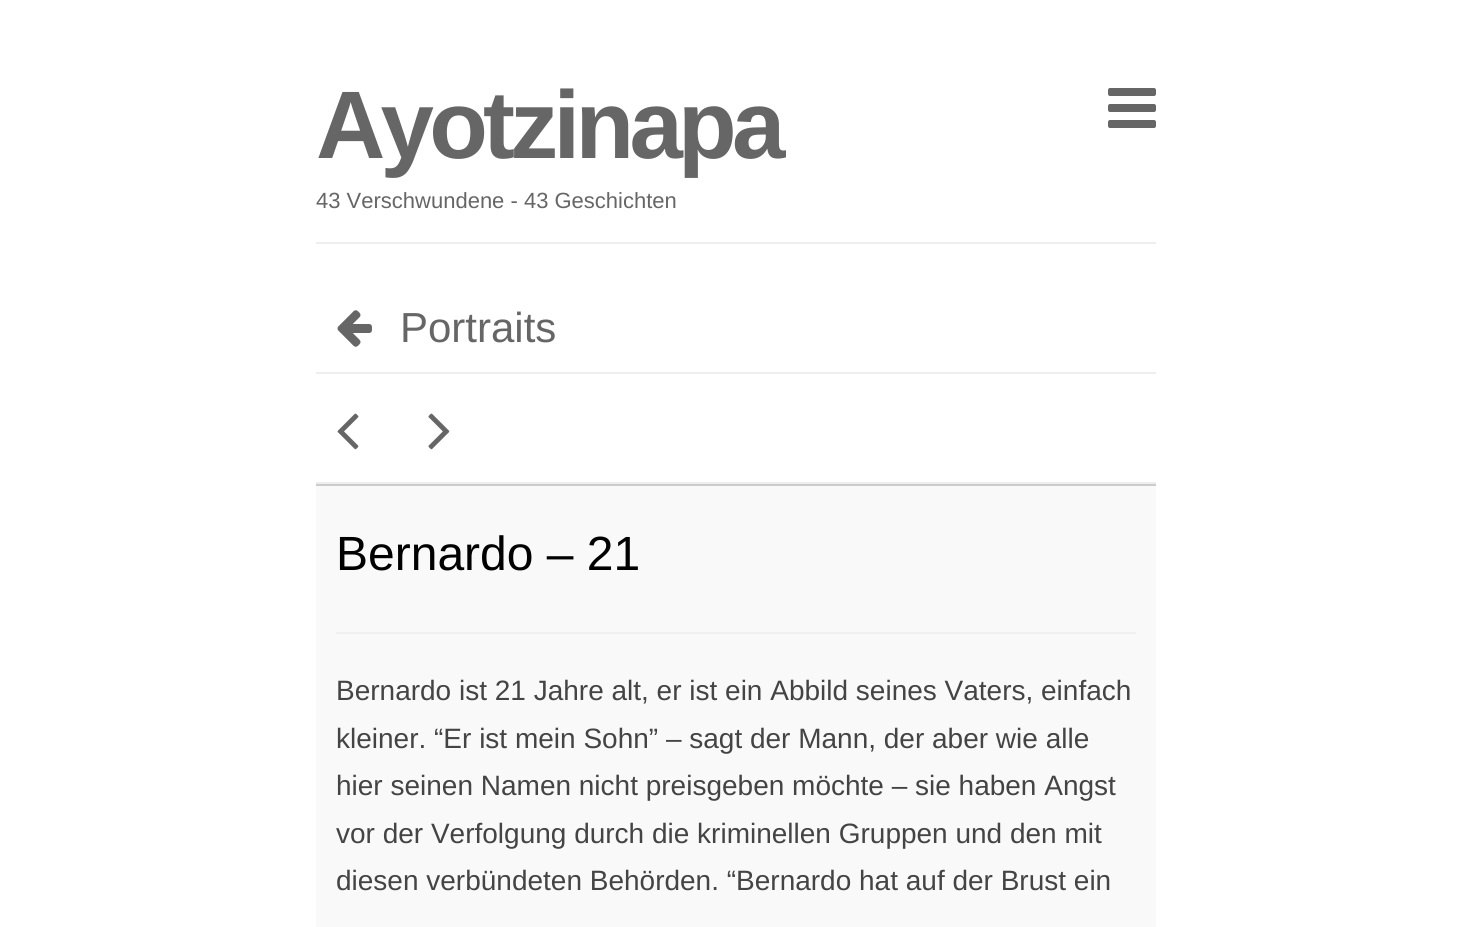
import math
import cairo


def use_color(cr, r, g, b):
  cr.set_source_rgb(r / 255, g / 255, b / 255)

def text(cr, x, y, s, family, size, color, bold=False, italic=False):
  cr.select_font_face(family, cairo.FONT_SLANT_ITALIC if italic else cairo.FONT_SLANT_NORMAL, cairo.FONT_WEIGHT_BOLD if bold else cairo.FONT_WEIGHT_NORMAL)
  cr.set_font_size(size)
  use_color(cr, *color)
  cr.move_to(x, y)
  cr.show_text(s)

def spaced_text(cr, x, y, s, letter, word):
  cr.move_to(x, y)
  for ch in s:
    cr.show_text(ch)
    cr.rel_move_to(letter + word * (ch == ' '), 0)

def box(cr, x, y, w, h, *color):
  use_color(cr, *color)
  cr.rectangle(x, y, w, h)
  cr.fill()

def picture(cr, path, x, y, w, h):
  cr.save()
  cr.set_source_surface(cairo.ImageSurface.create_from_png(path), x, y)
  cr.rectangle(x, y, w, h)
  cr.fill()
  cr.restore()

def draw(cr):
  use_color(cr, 255, 255, 255)
  cr.paint()
  picture(cr, "img_01.png", 1108, 88, 48, 40)
  box(cr, 316, 242, 840, 2, 238, 238, 238)
  box(cr, 316, 482, 840, 2, 238, 238, 238)
  picture(cr, "img_02.png", 337, 310, 35, 37)
  box(cr, 316, 372, 840, 2, 238, 238, 238)
  picture(cr, "img_03.png", 337, 413, 22, 37)
  picture(cr, "img_04.png", 428, 413, 22, 37)
  box(cr, 316, 486, 840, 441, 249, 249, 249)
  box(cr, 316, 484, 840, 2, 204, 204, 204)
  box(cr, 336, 632, 800, 2, 240, 240, 240)
  cr.select_font_face("Liberation Sans", cairo.FONT_SLANT_NORMAL, cairo.FONT_WEIGHT_BOLD)
  cr.set_font_size(96)
  use_color(cr, 102, 102, 102)
  spaced_text(cr, 316, 158, "Ayotzinapa", -4.75, 0)
  text(cr, 316, 208, "43 Verschwundene - 43 Geschichten", "Liberation Sans", 22, (102, 102, 102))
  text(cr, 400, 342, "Portraits", "Liberation Sans", 42, (102, 102, 102))
  text(cr, 336, 570, "Bernardo – 21", "Liberation Sans", 48, (0, 0, 0))
  text(cr, 336, 700, "Bernardo ist 21 Jahre alt, er ist ein Abbild seines Vaters, einfach", "Liberation Sans", 28, (68, 68, 68))
  text(cr, 336, 748, "kleiner. “Er ist mein Sohn” – sagt der Mann, der aber wie alle", "Liberation Sans", 28, (68, 68, 68))
  text(cr, 336, 795, "hier seinen Namen nicht preisgeben möchte – sie haben Angst", "Liberation Sans", 28, (68, 68, 68))
  text(cr, 336, 843, "vor der Verfolgung durch die kriminellen Gruppen und den mit", "Liberation Sans", 28, (68, 68, 68))
  text(cr, 336, 890, "diesen verbündeten Behörden. “Bernardo hat auf der Brust ein", "Liberation Sans", 28, (68, 68, 68))


surface = cairo.ImageSurface(cairo.FORMAT_RGB24, 1472, 927)
cr = cairo.Context(surface)
options = cairo.FontOptions()
options.set_hint_metrics(cairo.HINT_METRICS_OFF)
options.set_hint_style(cairo.HINT_STYLE_NONE)
cr.set_font_options(options)
cr.set_miter_limit(4)
draw(cr)
surface.write_to_png("out.png")
